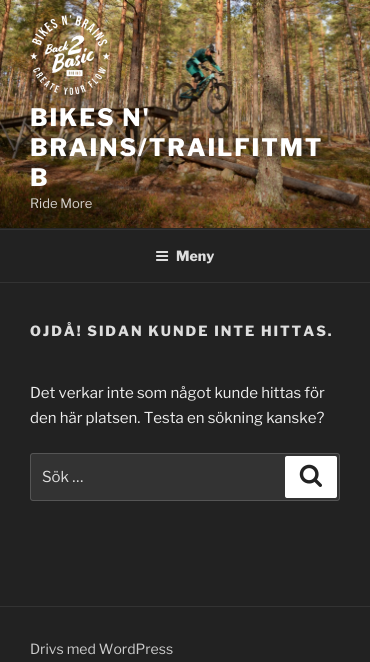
import math
import cairo


def use_color(cr, r, g, b):
  cr.set_source_rgb(r / 255, g / 255, b / 255)

def text(cr, x, y, s, family, size, color, bold=False, italic=False):
  cr.select_font_face(family, cairo.FONT_SLANT_ITALIC if italic else cairo.FONT_SLANT_NORMAL, cairo.FONT_WEIGHT_BOLD if bold else cairo.FONT_WEIGHT_NORMAL)
  cr.set_font_size(size)
  use_color(cr, *color)
  cr.move_to(x, y)
  cr.show_text(s)

def spaced_text(cr, x, y, s, letter, word):
  cr.move_to(x, y)
  for ch in s:
    cr.show_text(ch)
    cr.rel_move_to(letter + word * (ch == ' '), 0)

def box(cr, x, y, w, h, *color):
  use_color(cr, *color)
  cr.rectangle(x, y, w, h)
  cr.fill()

def round_rect(cr, x, y, w, h, r):
  cr.new_sub_path()
  for i, (u, v) in enumerate([(x + w - r, y + h - r), (x + r, y + h - r), (x + r, y + r), (x + w - r, y + r)]):
    cr.arc(u, v, r, i * math.pi / 2, (i + 1) * math.pi / 2)
  cr.close_path()

def picture(cr, path, x, y, w, h):
  cr.save()
  cr.set_source_surface(cairo.ImageSurface.create_from_png(path), x, y)
  cr.rectangle(x, y, w, h)
  cr.fill()
  cr.restore()

def draw(cr):
  use_color(cr, 34, 34, 34)
  cr.paint()
  box(cr, 0, 228, 370, 1, 38, 38, 38)
  picture(cr, "img_01.png", 0, 0, 370, 228)
  picture(cr, "img_02.png", 30, 15, 80, 80)
  box(cr, 0, 229, 370, 1, 51, 51, 51)
  box(cr, 0, 282, 370, 1, 51, 51, 51)
  picture(cr, "img_03.png", 156, 251, 13, 10)
  round_rect(cr, 30.5, 453.5, 309, 47, 2.5)
  cr.fill_preserve()
  use_color(cr, 85, 85, 85)
  cr.set_line_width(1)
  cr.stroke()
  use_color(cr, 255, 255, 255)
  round_rect(cr, 285, 456, 52, 42, 2)
  cr.fill()
  picture(cr, "img_04.png", 299, 464, 23, 23)
  box(cr, 0, 606, 370, 1, 51, 51, 51)
  cr.select_font_face("Libre Franklin ExtraBold")
  cr.set_font_size(24)
  use_color(cr, 255, 255, 255)
  spaced_text(cr, 30, 126, "BIKES N'", 1.9, 0)
  spaced_text(cr, 30, 156, "BRAINS/TRAILFITMT", 1.9, 0)
  spaced_text(cr, 30, 186, "B", 1.9, 0)
  text(cr, 30, 208, "Ride More", "Libre Franklin", 13, (214, 210, 206))
  text(cr, 176, 261, "Meny", "Libre Franklin ExtraBold", 14, (221, 221, 221))
  spaced_text(cr, 30, 336, "OJDÅ! SIDAN KUNDE INTE HITTAS.", 1.95, 0)
  text(cr, 30, 398, "Det verkar inte som något kunde hittas för", "Libre Franklin", 15, (238, 238, 238))
  text(cr, 30, 423, "den här platsen. Testa en sökning kanske?", "Libre Franklin", 15, (238, 238, 238))
  text(cr, 42, 482, "Sök …", "Libre Franklin", 15, (221, 221, 221))
  text(cr, 30, 654, "Drivs med WordPress", "Libre Franklin", 14, (204, 204, 204))


surface = cairo.ImageSurface(cairo.FORMAT_RGB24, 370, 662)
cr = cairo.Context(surface)
options = cairo.FontOptions()
options.set_hint_metrics(cairo.HINT_METRICS_OFF)
options.set_hint_style(cairo.HINT_STYLE_NONE)
cr.set_font_options(options)
cr.set_miter_limit(4)
draw(cr)
surface.write_to_png("out.png")
